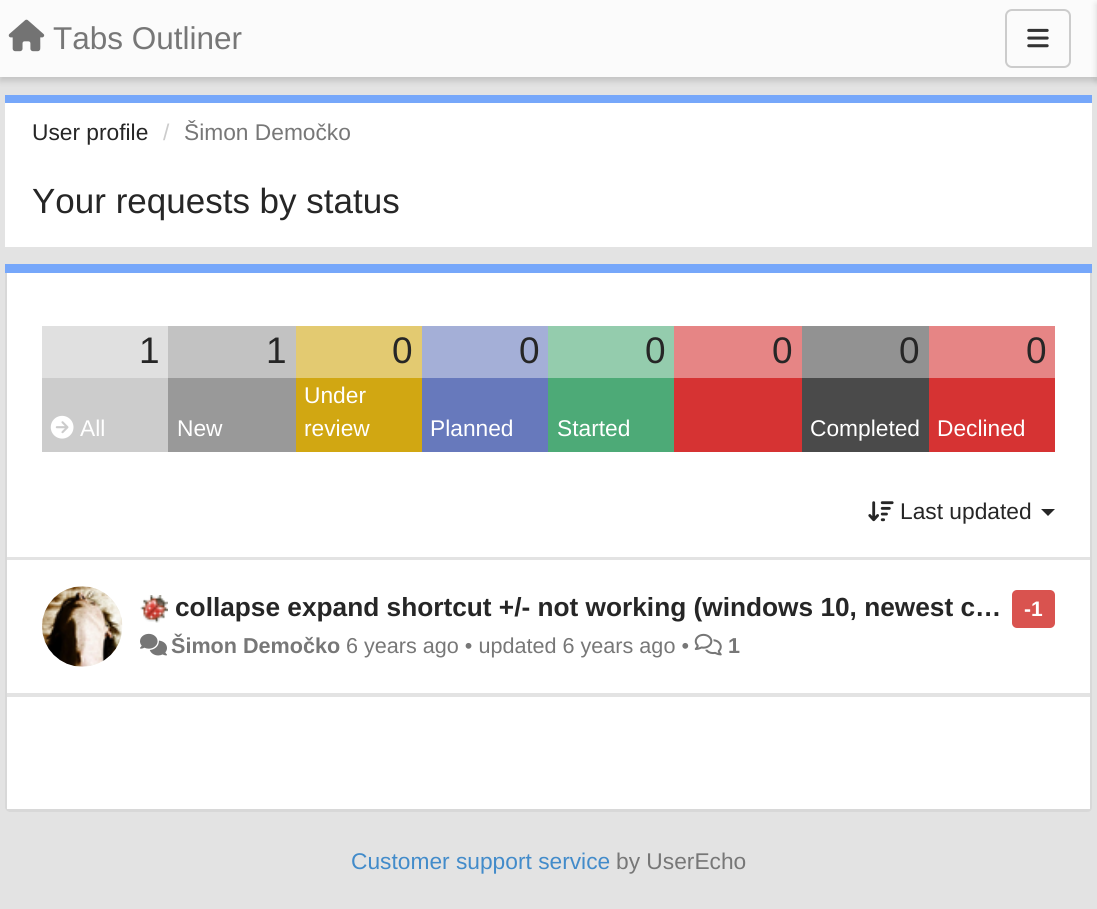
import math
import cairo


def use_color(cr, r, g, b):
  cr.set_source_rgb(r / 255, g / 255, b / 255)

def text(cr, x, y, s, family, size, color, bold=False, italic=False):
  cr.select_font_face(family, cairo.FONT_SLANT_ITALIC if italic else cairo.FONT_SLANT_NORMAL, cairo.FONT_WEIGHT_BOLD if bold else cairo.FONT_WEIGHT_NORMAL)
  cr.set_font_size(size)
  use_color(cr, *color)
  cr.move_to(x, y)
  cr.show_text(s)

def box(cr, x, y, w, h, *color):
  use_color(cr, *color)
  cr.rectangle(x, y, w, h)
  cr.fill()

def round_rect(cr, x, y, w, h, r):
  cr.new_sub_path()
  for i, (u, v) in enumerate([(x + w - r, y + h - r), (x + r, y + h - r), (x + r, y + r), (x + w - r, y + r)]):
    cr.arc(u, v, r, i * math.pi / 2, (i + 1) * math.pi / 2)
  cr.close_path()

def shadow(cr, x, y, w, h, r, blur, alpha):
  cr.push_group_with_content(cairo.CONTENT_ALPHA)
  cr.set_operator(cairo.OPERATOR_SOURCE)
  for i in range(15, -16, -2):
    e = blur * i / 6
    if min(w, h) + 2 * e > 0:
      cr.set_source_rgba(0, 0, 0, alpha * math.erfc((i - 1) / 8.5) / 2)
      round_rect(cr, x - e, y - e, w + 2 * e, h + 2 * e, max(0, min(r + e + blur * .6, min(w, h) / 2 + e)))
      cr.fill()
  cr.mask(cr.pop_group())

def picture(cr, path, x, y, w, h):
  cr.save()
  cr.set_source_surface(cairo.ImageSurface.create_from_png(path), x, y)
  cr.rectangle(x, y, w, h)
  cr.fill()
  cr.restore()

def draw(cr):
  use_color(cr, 227, 227, 227)
  cr.paint()
  use_color(cr, 0, 0, 0)
  shadow(cr, 0, 4, 1097, 77, 0, 3.5, 0.15)
  box(cr, 0, 0, 1097, 77, 251, 251, 251)
  picture(cr, "img_01.png", 8, 19, 37, 33)
  round_rect(cr, 1006, 10, 64, 57, 6)
  use_color(cr, 204, 204, 204)
  cr.stroke()
  picture(cr, "img_02.png", 1027, 28, 22, 20)
  use_color(cr, 0, 0, 0)
  shadow(cr, 1097, 4, 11, 77, 0, 3.5, 0.15)
  box(cr, 5, 103, 1087, 144, 255, 255, 255)
  box(cr, 5, 95, 1087, 8, 118, 167, 250)
  box(cr, 5, 264, 1087, 9, 118, 167, 250)
  use_color(cr, 216, 216, 216)
  cr.set_fill_rule(cairo.FILL_RULE_EVEN_ODD)
  cr.new_path()
  cr.move_to(5, 273)
  cr.line_to(1092, 273)
  cr.line_to(1092, 807)
  cr.curve_to(1092, 810, 1090, 812, 1087, 812)
  cr.line_to(10, 812)
  cr.curve_to(8, 812, 5, 810, 5, 807)
  cr.close_path()
  cr.move_to(7, 273)
  cr.line_to(1090, 273)
  cr.line_to(1090, 807)
  cr.curve_to(1090, 808, 1089, 808, 1087, 808)
  cr.line_to(10, 808)
  cr.curve_to(9, 808, 7, 808, 7, 807)
  cr.close_path()
  cr.fill()
  box(cr, 7, 273, 1083, 284, 255, 255, 255)
  box(cr, 42, 326, 126, 52, 224, 224, 224)
  box(cr, 168, 326, 128, 52, 194, 194, 194)
  box(cr, 296, 326, 126, 52, 227, 202, 113)
  box(cr, 422, 326, 126, 52, 164, 175, 215)
  box(cr, 548, 326, 126, 52, 148, 204, 173)
  box(cr, 674, 326, 128, 52, 230, 133, 133)
  box(cr, 802, 326, 127, 52, 146, 146, 146)
  box(cr, 929, 326, 126, 52, 230, 133, 133)
  box(cr, 42, 378, 126, 74, 204, 204, 204)
  picture(cr, "img_03.png", 50, 415, 24, 24)
  box(cr, 168, 378, 128, 74, 153, 153, 153)
  box(cr, 296, 378, 126, 74, 209, 167, 18)
  box(cr, 422, 378, 126, 74, 103, 121, 188)
  box(cr, 548, 378, 126, 74, 77, 170, 119)
  box(cr, 674, 378, 128, 74, 214, 51, 51)
  box(cr, 802, 378, 127, 74, 74, 74, 74)
  box(cr, 929, 378, 126, 74, 214, 51, 51)
  picture(cr, "img_04.png", 868, 501, 26, 21)
  use_color(cr, 38, 38, 38)
  cr.set_fill_rule(cairo.FILL_RULE_WINDING)
  cr.new_path()
  cr.move_to(1041, 509)
  cr.line_to(1055, 509)
  cr.line_to(1048, 516)
  cr.close_path()
  cr.fill()
  box(cr, 7, 560, 1083, 133, 255, 255, 255)
  picture(cr, "img_05.png", 42, 586, 81, 81)
  picture(cr, "img_06.png", 140, 595, 28, 28)
  use_color(cr, 217, 83, 79)
  round_rect(cr, 1012, 590, 43, 38, 5)
  cr.fill()
  picture(cr, "img_07.png", 140, 633, 27, 23)
  picture(cr, "img_08.png", 694, 633, 28, 23)
  box(cr, 7, 697, 1083, 112, 255, 255, 255)
  text(cr, 53, 49, "Tabs Outliner", "Liberation Sans", 31.5, (119, 119, 119))
  text(cr, 32, 140, "User profile", "Liberation Sans", 22.75, (38, 38, 38))
  text(cr, 163, 140, "/", "Liberation Sans", 22.75, (204, 204, 204))
  text(cr, 184, 140, "Šimon Demočko", "Liberation Sans", 22.75, (119, 119, 119))
  text(cr, 32, 213, "Your requests by status", "Liberation Sans", 35, (38, 38, 38))
  text(cr, 139, 363, "1", "Liberation Sans", 37, (38, 38, 38))
  text(cr, 266, 363, "1", "Liberation Sans", 37, (38, 38, 38))
  text(cr, 392, 363, "0", "Liberation Sans", 37, (38, 38, 38))
  text(cr, 519, 363, "0", "Liberation Sans", 37, (38, 38, 38))
  text(cr, 645, 363, "0", "Liberation Sans", 37, (38, 38, 38))
  text(cr, 772, 363, "0", "Liberation Sans", 37, (38, 38, 38))
  text(cr, 899, 363, "0", "Liberation Sans", 37, (38, 38, 38))
  text(cr, 1026, 363, "0", "Liberation Sans", 37, (38, 38, 38))
  text(cr, 80, 436, "All", "Liberation Sans", 22.75, (255, 255, 255))
  text(cr, 177, 436, "New", "Liberation Sans", 22.75, (255, 255, 255))
  text(cr, 304, 403, "Under", "Liberation Sans", 22.75, (255, 255, 255))
  text(cr, 304, 436, "review", "Liberation Sans", 22.75, (255, 255, 255))
  text(cr, 430, 436, "Planned", "Liberation Sans", 22.75, (255, 255, 255))
  text(cr, 557, 436, "Started", "Liberation Sans", 22.75, (255, 255, 255))
  text(cr, 810, 436, "Completed", "Liberation Sans", 22.75, (255, 255, 255))
  text(cr, 937, 436, "Declined", "Liberation Sans", 22.75, (255, 255, 255))
  text(cr, 900, 519, "Last updated", "Liberation Sans", 22.75, (38, 38, 38))
  text(cr, 175, 616, "collapse expand shortcut +/- not working (windows 10, newest c…", "Liberation Sans", 26.25, (38, 38, 38), bold=True)
  text(cr, 1024, 616, "-1", "Liberation Sans", 21, (255, 255, 255), bold=True)
  text(cr, 171, 653, "Šimon Demočko", "Liberation Sans", 21.6, (119, 119, 119), bold=True)
  text(cr, 346, 653, "6 years ago • updated 6 years ago •", "Liberation Sans", 21.6, (119, 119, 119))
  text(cr, 728, 653, "1", "Liberation Sans", 21.6, (119, 119, 119), bold=True)
  text(cr, 351, 869, "Customer support service", "Liberation Sans", 22.75, (66, 139, 202))
  text(cr, 616, 869, "by UserEcho", "Liberation Sans", 22.75, (119, 119, 119))


surface = cairo.ImageSurface(cairo.FORMAT_RGB24, 1097, 909)
cr = cairo.Context(surface)
options = cairo.FontOptions()
options.set_hint_metrics(cairo.HINT_METRICS_OFF)
options.set_hint_style(cairo.HINT_STYLE_NONE)
cr.set_font_options(options)
cr.set_miter_limit(4)
draw(cr)
surface.write_to_png("out.png")
